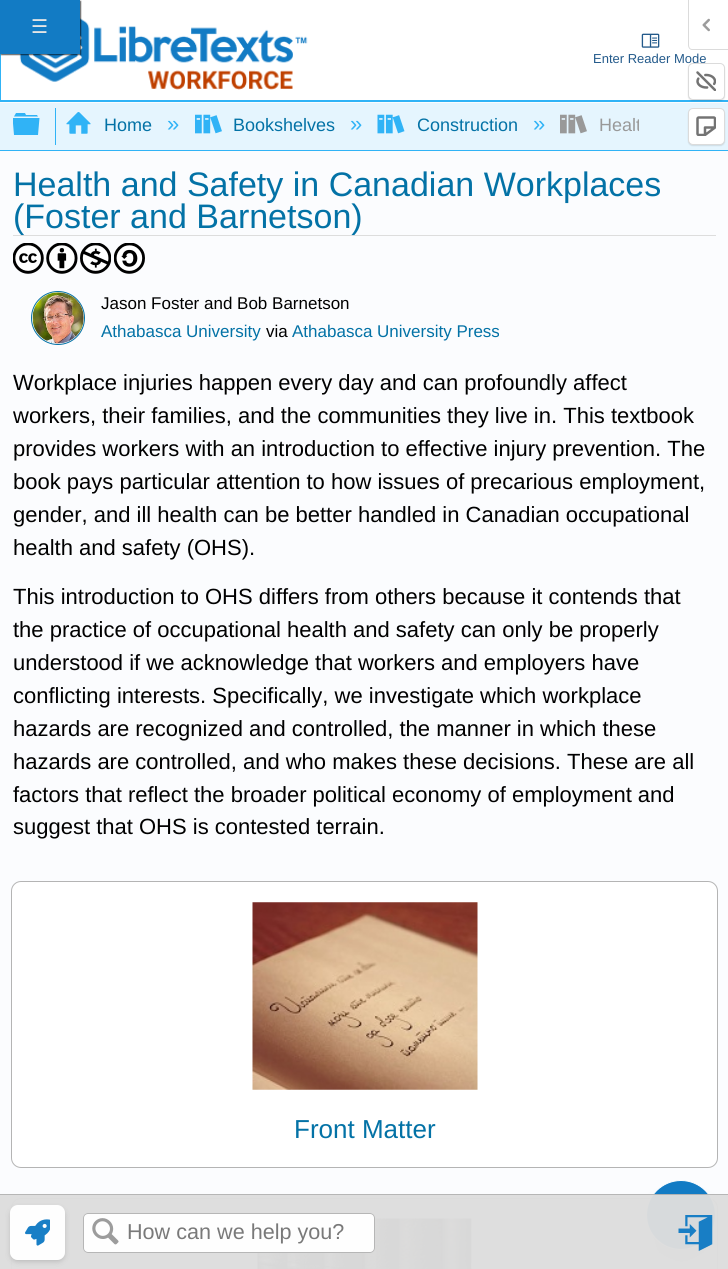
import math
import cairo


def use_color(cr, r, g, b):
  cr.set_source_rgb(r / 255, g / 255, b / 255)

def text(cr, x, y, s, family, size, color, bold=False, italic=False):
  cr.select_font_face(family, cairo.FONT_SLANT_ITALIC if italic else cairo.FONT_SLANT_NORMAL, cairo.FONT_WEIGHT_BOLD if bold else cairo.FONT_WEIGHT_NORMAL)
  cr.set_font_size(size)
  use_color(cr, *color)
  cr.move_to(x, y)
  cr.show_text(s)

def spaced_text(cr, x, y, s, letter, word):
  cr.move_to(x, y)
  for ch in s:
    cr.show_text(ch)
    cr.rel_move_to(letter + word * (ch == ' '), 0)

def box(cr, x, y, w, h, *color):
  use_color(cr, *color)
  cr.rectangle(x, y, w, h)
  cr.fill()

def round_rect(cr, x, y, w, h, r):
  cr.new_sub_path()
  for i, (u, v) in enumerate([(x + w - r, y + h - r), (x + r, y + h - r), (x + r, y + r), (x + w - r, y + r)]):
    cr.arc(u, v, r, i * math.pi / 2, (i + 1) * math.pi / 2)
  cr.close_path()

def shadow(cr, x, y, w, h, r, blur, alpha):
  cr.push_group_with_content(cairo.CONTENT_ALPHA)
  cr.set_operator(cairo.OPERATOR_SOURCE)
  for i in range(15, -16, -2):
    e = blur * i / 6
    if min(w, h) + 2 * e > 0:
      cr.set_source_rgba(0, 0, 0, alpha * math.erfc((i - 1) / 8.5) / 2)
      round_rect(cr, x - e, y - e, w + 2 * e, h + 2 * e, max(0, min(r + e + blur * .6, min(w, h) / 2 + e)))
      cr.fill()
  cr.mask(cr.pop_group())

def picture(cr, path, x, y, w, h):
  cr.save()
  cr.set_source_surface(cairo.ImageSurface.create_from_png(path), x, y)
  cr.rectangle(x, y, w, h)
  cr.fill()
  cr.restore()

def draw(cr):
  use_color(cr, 251, 252, 254)
  cr.paint()
  use_color(cr, 255, 255, 255)
  cr.rectangle(0.5, -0.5, 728, 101)
  cr.fill_preserve()
  use_color(cr, 48, 179, 246)
  cr.set_line_width(1)
  cr.stroke()
  picture(cr, "img_04.png", 19, 18, 289, 72)
  use_color(cr, 0, 0, 0)
  shadow(cr, 1, 1, 80, 54, 0, 0.5, 0.6)
  box(cr, 0, 0, 80, 54, 18, 123, 196)
  use_color(cr, 219, 219, 219)
  cr.set_fill_rule(cairo.FILL_RULE_EVEN_ODD)
  cr.new_path()
  cr.move_to(688, 0)
  cr.line_to(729, 0)
  cr.line_to(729, 50)
  cr.line_to(692, 50)
  cr.curve_to(690, 50, 688, 48, 688, 45)
  cr.close_path()
  cr.move_to(689, 0)
  cr.line_to(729, 0)
  cr.line_to(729, 49)
  cr.line_to(692, 49)
  cr.curve_to(690, 49, 689, 47, 689, 45)
  cr.close_path()
  cr.fill()
  picture(cr, "img_01.png", 702, 18, 8, 14)
  box(cr, 0, 103, 728, 47, 229, 245, 254)
  box(cr, 0, 101, 728, 1, 48, 179, 246)
  use_color(cr, 0, 0, 0)
  shadow(cr, 688, 64, 37, 37, 5, 0.5, 0.1)
  shadow(cr, 688, 109, 37, 37, 5, 0.5, 0.1)
  use_color(cr, 255, 255, 255)
  round_rect(cr, 688.5, 108.5, 36, 36, 4.5)
  cr.fill_preserve()
  use_color(cr, 219, 219, 219)
  cr.stroke()
  picture(cr, "img_03.png", 696, 116, 20, 20)
  picture(cr, "img_05.png", 641, 33, 19, 15)
  box(cr, 0, 150, 728, 1, 48, 179, 246)
  cr.new_path()
  cr.move_to(13, 123.5)
  cr.line_to(13, 118)
  cr.line_to(39.5, 118)
  cr.line_to(38, 135)
  cr.line_to(14, 135)
  cr.close_path()
  cr.move_to(37, 115)
  cr.line_to(26, 115)
  cr.line_to(25, 113)
  cr.line_to(16, 113)
  cr.line_to(14, 116.5)
  cr.line_to(38, 116.5)
  cr.close_path()
  cr.fill()
  box(cr, 55, 108, 1, 37, 48, 179, 246)
  picture(cr, "img_06.png", 66, 112, 25, 22)
  picture(cr, "img_07.png", 195, 114, 27, 20)
  picture(cr, "img_08.png", 377, 114, 28, 20)
  picture(cr, "img_09.png", 560, 114, 27, 20)
  use_color(cr, 255, 255, 255)
  round_rect(cr, 11.5, 1198.5, 706, 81, 9.5)
  cr.fill_preserve()
  use_color(cr, 180, 180, 180)
  cr.stroke()
  picture(cr, "img_19.png", 257, 1218, 215, 51)
  use_color(cr, 0, 0, 0)
  shadow(cr, 654, 1198, 55, 55, 27.5, 6, 0.1)
  use_color(cr, 255, 255, 255)
  round_rect(cr, 11.5, 881.5, 706, 286, 9.5)
  cr.fill_preserve()
  use_color(cr, 180, 180, 180)
  cr.stroke()
  use_color(cr, 0, 0, 0)
  shadow(cr, 653, 1211, 57, 58, 28.5, 15.5, 0.1)
  use_color(cr, 18, 123, 196)
  cr.arc(681, 1215, 34.5, 0, 2 * math.pi)
  cr.fill_preserve()
  use_color(cr, 255, 255, 255)
  cr.stroke()
  cr.set_source_rgba(0.867, 0.867, 0.867, 0.97)
  cr.rectangle(0, 1195, 728, 74)
  cr.fill()
  cr.set_source_rgba(0.706, 0.706, 0.706, 0.97)
  cr.rectangle(0, 1194, 728, 1)
  cr.fill()
  cr.save()
  cr.new_path()
  cr.move_to(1, 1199)
  cr.line_to(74, 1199)
  cr.line_to(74, 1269)
  cr.line_to(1, 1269)
  cr.close_path()
  cr.move_to(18, 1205)
  cr.line_to(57, 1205)
  cr.curve_to(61.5, 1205, 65, 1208.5, 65, 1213)
  cr.line_to(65, 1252)
  cr.curve_to(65, 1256.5, 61.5, 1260, 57, 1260)
  cr.line_to(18, 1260)
  cr.curve_to(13.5, 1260, 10, 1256.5, 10, 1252)
  cr.line_to(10, 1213)
  cr.curve_to(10, 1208.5, 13.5, 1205, 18, 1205)
  cr.close_path()
  cr.clip()
  use_color(cr, 0, 0, 0)
  shadow(cr, 11, 1209, 53, 52, 6, 3, 0.19)
  cr.restore()
  cr.set_source_rgba(1, 1, 1, 0.97)
  round_rect(cr, 10, 1205, 55, 55, 8)
  cr.fill()
  picture(cr, "img_10.png", 25, 1219, 25, 27)
  round_rect(cr, 83, 1213, 292, 40, 5)
  cr.fill()
  round_rect(cr, 83.5, 1213.5, 291, 39, 4.5)
  cr.set_source_rgba(0.706, 0.706, 0.706, 0.97)
  cr.stroke()
  picture(cr, "img_11.png", 92, 1218, 27, 27)
  picture(cr, "img_12.png", 678, 1215, 35, 36)
  box(cr, 13, 235, 703, 1, 221, 221, 221)
  picture(cr, "img_13.png", 13, 243, 31, 31)
  picture(cr, "img_14.png", 46, 243, 32, 31)
  picture(cr, "img_15.png", 80, 243, 31, 31)
  picture(cr, "img_16.png", 114, 243, 31, 31)
  cr.arc(58, 318, 26.5, 0, 2 * math.pi)
  use_color(cr, 3, 114, 166)
  cr.stroke()
  picture(cr, "img_17.png", 32, 292, 52, 52)
  picture(cr, "img_18.png", 252, 902, 226, 188)
  cr.select_font_face("DejaVu Sans")
  cr.set_font_size(19)
  use_color(cr, 229, 229, 229)
  spaced_text(cr, 31, 33, "☰", 1, 0)
  text(cr, 593, 63, "Enter Reader Mode", "Liberation Sans", 13, (35, 90, 139))
  use_color(cr, 255, 255, 255)
  round_rect(cr, 688.5, 63.5, 36, 36, 4.5)
  cr.fill_preserve()
  use_color(cr, 219, 219, 219)
  cr.stroke()
  picture(cr, "img_02.png", 696, 71, 20, 20)
  text(cr, 104, 131, "Home", "Liberation Sans", 18, (3, 114, 166))
  text(cr, 167, 131, "»", "Liberation Sans", 22, (48, 179, 246))
  text(cr, 233, 131, "Bookshelves", "Liberation Sans", 18, (3, 114, 166))
  text(cr, 350, 131, "»", "Liberation Sans", 22, (48, 179, 246))
  text(cr, 417, 131, "Construction", "Liberation Sans", 18, (3, 114, 166))
  text(cr, 533, 131, "»", "Liberation Sans", 22, (48, 179, 246))
  cr.save()
  cr.set_fill_rule(cairo.FILL_RULE_WINDING)
  cr.rectangle(56, 108, 583, 37)
  cr.clip()
  text(cr, 599, 131, "Healt", "Liberation Sans", 18, (153, 153, 153))
  cr.restore()
  text(cr, 127, 1239, "How can we help you?", "Liberation Sans", 21.6, (121, 121, 121))
  text(cr, 13, 196, "Health and Safety in Canadian Workplaces", "Liberation Sans", 34, (3, 114, 166))
  text(cr, 13, 228, "(Foster and Barnetson)", "Liberation Sans", 34, (3, 114, 166))
  text(cr, 101, 309, "Jason Foster and Bob Barnetson", "Liberation Sans", 17, (0, 0, 0))
  text(cr, 101, 337, "Athabasca University", "Liberation Sans", 17, (3, 114, 166))
  text(cr, 266, 337, "via", "Liberation Sans", 17, (0, 0, 0))
  text(cr, 292, 337, "Athabasca University Press", "Liberation Sans", 17, (3, 114, 166))
  text(cr, 13, 390, "Workplace injuries happen every day and can profoundly affect", "Liberation Sans", 22, (0, 0, 0))
  text(cr, 13, 423, "workers, their families, and the communities they live in. This textbook", "Liberation Sans", 22, (0, 0, 0))
  text(cr, 13, 456, "provides workers with an introduction to effective injury prevention. The", "Liberation Sans", 22, (0, 0, 0))
  text(cr, 13, 489, "book pays particular attention to how issues of precarious employment,", "Liberation Sans", 22, (0, 0, 0))
  text(cr, 13, 522, "gender, and ill health can be better handled in Canadian occupational", "Liberation Sans", 22, (0, 0, 0))
  text(cr, 13, 555, "health and safety (OHS).", "Liberation Sans", 22, (0, 0, 0))
  text(cr, 13, 604, "This introduction to OHS differs from others because it contends that", "Liberation Sans", 22, (0, 0, 0))
  text(cr, 13, 637, "the practice of occupational health and safety can only be properly", "Liberation Sans", 22, (0, 0, 0))
  text(cr, 13, 670, "understood if we acknowledge that workers and employers have", "Liberation Sans", 22, (0, 0, 0))
  text(cr, 13, 703, "conflicting interests. Specifically, we investigate which workplace", "Liberation Sans", 22, (0, 0, 0))
  text(cr, 13, 736, "hazards are recognized and controlled, the manner in which these", "Liberation Sans", 22, (0, 0, 0))
  text(cr, 13, 769, "hazards are controlled, and who makes these decisions. These are all", "Liberation Sans", 22, (0, 0, 0))
  text(cr, 13, 802, "factors that reflect the broader political economy of employment and", "Liberation Sans", 22, (0, 0, 0))
  text(cr, 13, 834, "suggest that OHS is contested terrain.", "Liberation Sans", 22, (0, 0, 0))
  text(cr, 294, 1138, "Front Matter", "Liberation Sans", 26, (3, 114, 166))


surface = cairo.ImageSurface(cairo.FORMAT_RGB24, 728, 1269)
cr = cairo.Context(surface)
options = cairo.FontOptions()
options.set_hint_metrics(cairo.HINT_METRICS_OFF)
options.set_hint_style(cairo.HINT_STYLE_NONE)
cr.set_font_options(options)
cr.set_miter_limit(4)
draw(cr)
surface.write_to_png("out.png")
